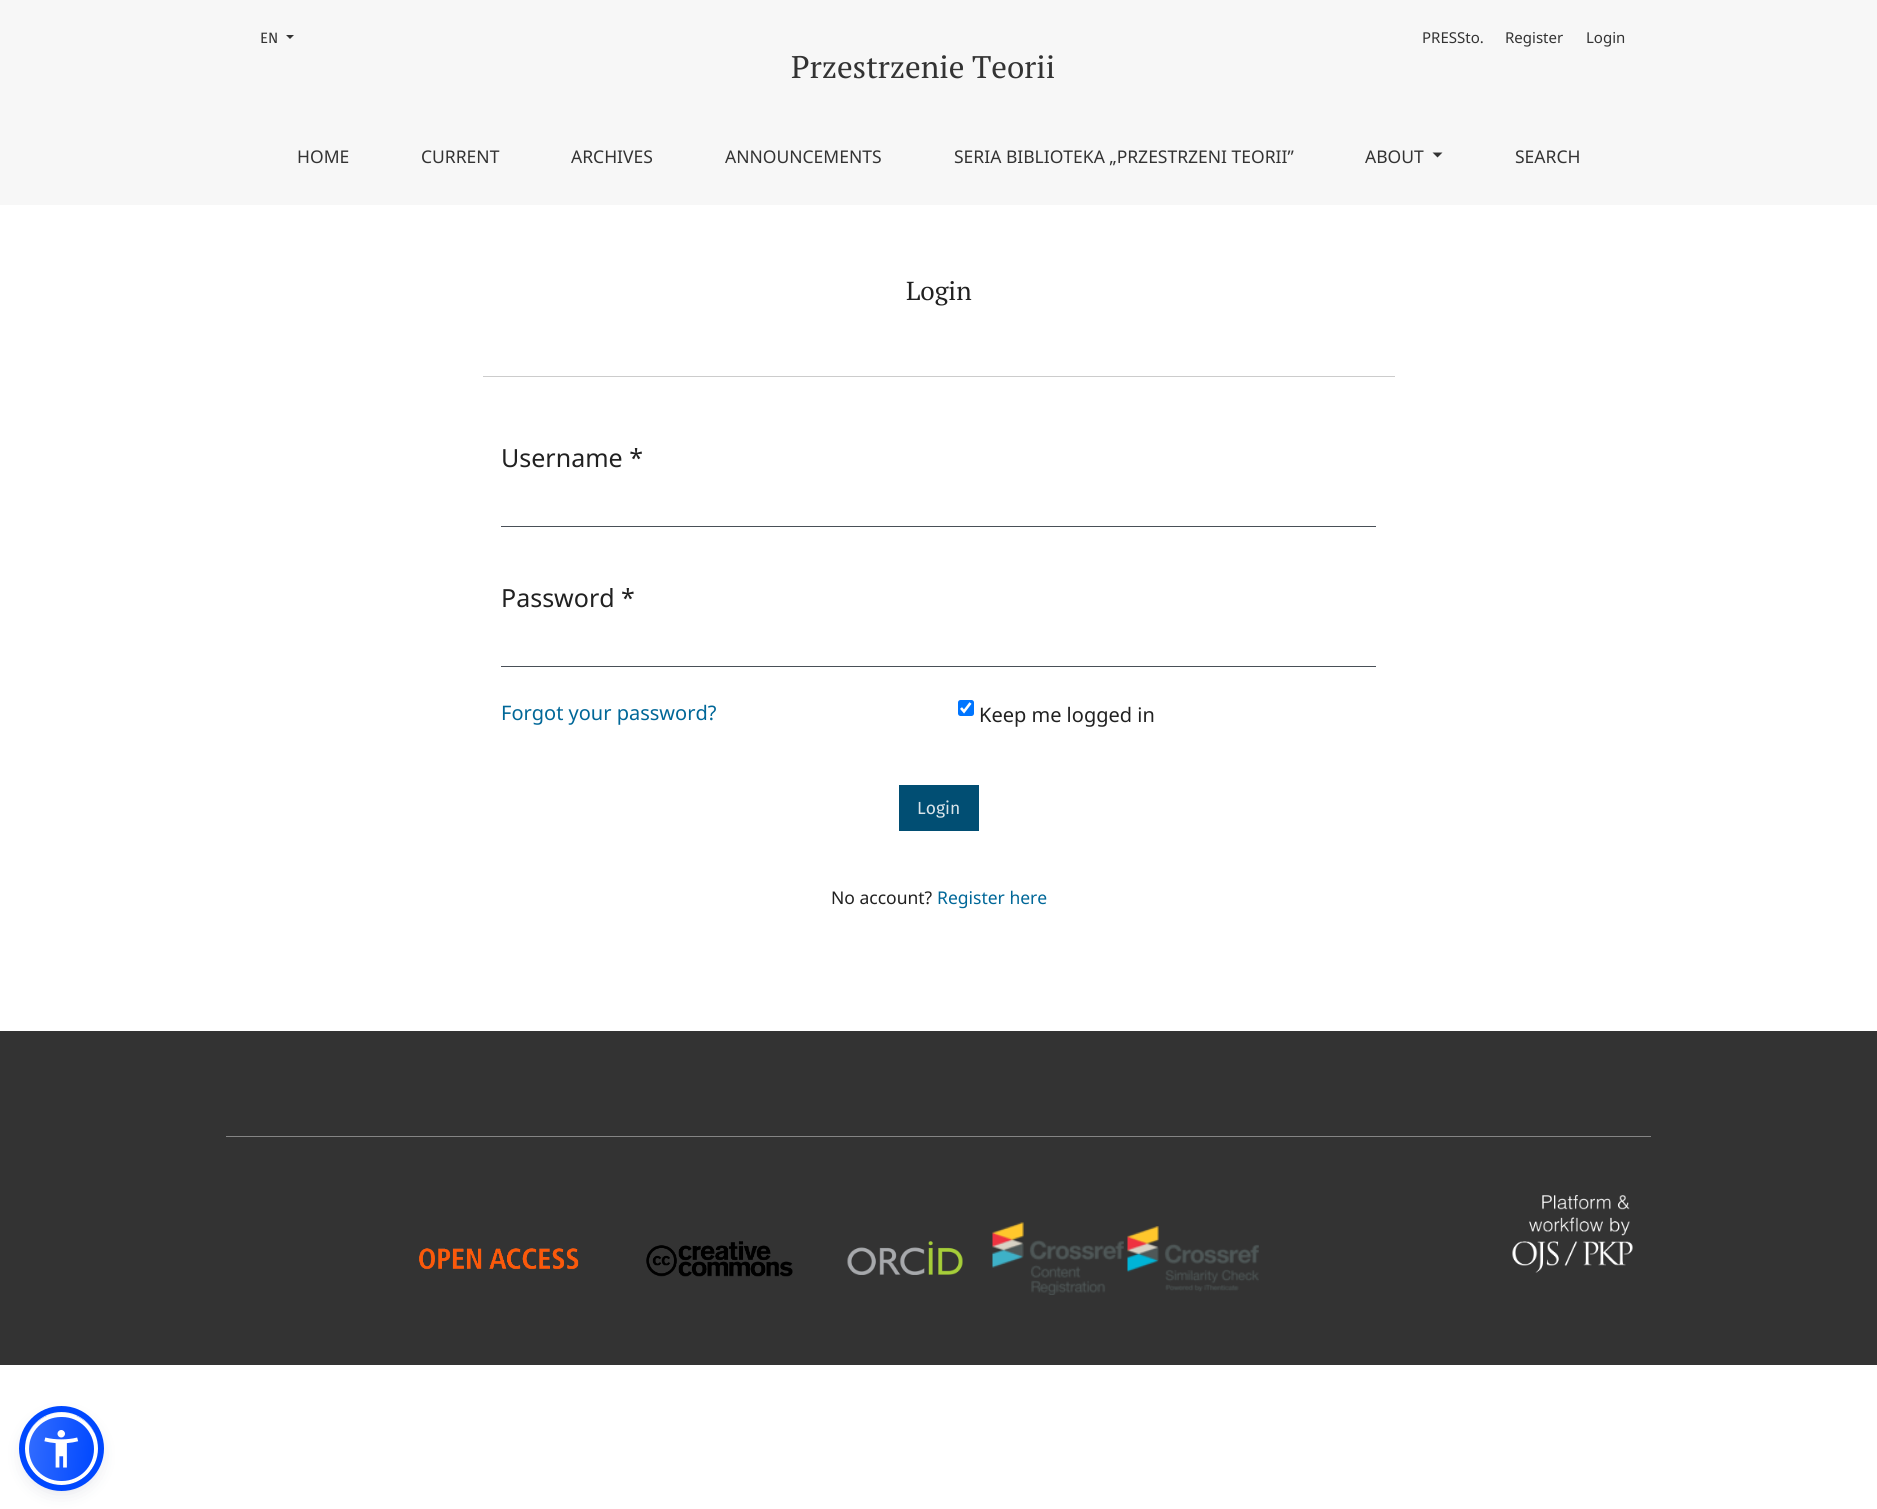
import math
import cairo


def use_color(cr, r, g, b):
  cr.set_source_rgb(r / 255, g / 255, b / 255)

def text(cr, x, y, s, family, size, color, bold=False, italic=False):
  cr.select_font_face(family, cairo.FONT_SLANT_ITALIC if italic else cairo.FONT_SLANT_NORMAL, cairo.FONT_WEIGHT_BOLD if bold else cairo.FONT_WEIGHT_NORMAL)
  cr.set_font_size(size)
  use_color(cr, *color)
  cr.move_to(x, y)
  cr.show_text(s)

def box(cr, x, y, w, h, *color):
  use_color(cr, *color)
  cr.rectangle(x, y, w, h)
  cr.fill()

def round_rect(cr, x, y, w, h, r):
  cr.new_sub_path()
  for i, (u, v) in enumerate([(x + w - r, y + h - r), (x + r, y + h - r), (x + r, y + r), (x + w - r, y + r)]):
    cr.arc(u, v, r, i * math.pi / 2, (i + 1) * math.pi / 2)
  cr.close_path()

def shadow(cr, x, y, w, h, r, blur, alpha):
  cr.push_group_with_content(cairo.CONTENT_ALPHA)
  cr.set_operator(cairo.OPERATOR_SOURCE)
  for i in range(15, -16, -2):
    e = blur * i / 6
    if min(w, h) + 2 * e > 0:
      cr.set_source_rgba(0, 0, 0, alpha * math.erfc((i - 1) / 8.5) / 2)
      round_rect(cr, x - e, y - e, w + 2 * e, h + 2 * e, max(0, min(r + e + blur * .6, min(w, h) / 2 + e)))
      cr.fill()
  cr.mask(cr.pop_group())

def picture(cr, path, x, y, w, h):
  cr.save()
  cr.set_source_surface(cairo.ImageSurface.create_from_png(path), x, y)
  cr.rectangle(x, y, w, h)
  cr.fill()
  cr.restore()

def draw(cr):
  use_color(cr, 255, 255, 255)
  cr.paint()
  box(cr, 0, 0, 1877, 205, 247, 247, 247)
  use_color(cr, 51, 51, 51)
  cr.new_path()
  cr.move_to(286, 35)
  cr.line_to(294, 35)
  cr.line_to(290, 39)
  cr.close_path()
  cr.fill()
  cr.new_path()
  cr.move_to(1432.5, 152.5)
  cr.line_to(1442.5, 152.5)
  cr.line_to(1437.5, 157.5)
  cr.close_path()
  cr.fill()
  box(cr, 483, 376, 912, 1, 204, 204, 204)
  box(cr, 501, 526, 875, 1, 73, 80, 87)
  box(cr, 501, 666, 875, 1, 73, 80, 87)
  use_color(cr, 0, 117, 255)
  round_rect(cr, 958, 700, 16, 16, 2.5)
  cr.fill()
  cr.new_path()
  cr.move_to(961, 708)
  cr.line_to(964, 711.5)
  cr.line_to(970.5, 703)
  use_color(cr, 255, 255, 255)
  cr.set_line_width(2.6)
  cr.stroke()
  box(cr, 899, 785, 80, 46, 1, 78, 115)
  box(cr, 0, 1031, 1877, 334, 51, 51, 51)
  box(cr, 226, 1136, 1425, 1, 133, 133, 133)
  picture(cr, "img_01.png", 419, 1248, 160, 22)
  picture(cr, "img_02.png", 646, 1241, 147, 36)
  picture(cr, "img_03.png", 847, 1241, 116, 34)
  picture(cr, "img_04.png", 992, 1222, 132, 73)
  picture(cr, "img_05.png", 1127, 1226, 132, 66)
  picture(cr, "img_06.png", 1512, 1195, 121, 78)
  use_color(cr, 93, 100, 148)
  shadow(cr, 25, 1415, 73, 73, 36.5, 2.5, 0.2)
  use_color(cr, 37, 44, 97)
  shadow(cr, 25, 1419, 73, 72, 36, 9.5, 0.15)
  cr.save()
  round_rect(cr, 25, 1413, 73, 72, 36)
  cr.clip()
  gradient = cairo.LinearGradient(26, 1445, 97, 1452)
  gradient.add_color_stop_rgba(0, 0.196, 0.424, 1, 1)
  gradient.add_color_stop_rgba(1, 0, 0.282, 1, 1)
  cr.set_source(gradient)
  cr.rectangle(29, 1416, 65, 65)
  cr.fill()
  cr.restore()
  round_rect(cr, 27, 1415, 69, 68, 34)
  use_color(cr, 255, 255, 255)
  cr.set_line_width(4)
  cr.stroke()
  cr.arc(61.5, 1448.5, 39.5, 0, 2 * math.pi)
  use_color(cr, 0, 72, 255)
  cr.set_line_width(6)
  cr.stroke()
  picture(cr, "img_07.png", 44, 1430, 35, 38)
  text(cr, 260, 43, "EN", "Fira Sans", 15, (51, 51, 51))
  text(cr, 1422, 43, "PRESSto.", "Noto Sans", 15, (51, 51, 51))
  text(cr, 1505, 43, "Register", "Noto Sans", 15, (51, 51, 51))
  text(cr, 1586, 43, "Login", "Noto Sans", 15, (51, 51, 51))
  text(cr, 791, 78, "Przestrzenie Teorii", "PT Serif", 31.25, (51, 51, 51))
  text(cr, 297, 163, "HOME", "Noto Sans", 17.5, (51, 51, 51))
  text(cr, 421, 163, "CURRENT", "Noto Sans", 17.5, (51, 51, 51))
  text(cr, 571, 163, "ARCHIVES", "Noto Sans", 17.5, (51, 51, 51))
  text(cr, 725, 163, "ANNOUNCEMENTS", "Noto Sans", 17.5, (51, 51, 51))
  text(cr, 954, 163, "SERIA BIBLIOTEKA „PRZESTRZENI TEORII”", "Noto Sans", 17.5, (51, 51, 51))
  text(cr, 1365, 163, "ABOUT", "Noto Sans", 17.5, (51, 51, 51))
  text(cr, 1515, 163, "SEARCH", "Noto Sans", 17.5, (51, 51, 51))
  text(cr, 906, 300, "Login", "PT Serif", 26, (33, 33, 33))
  text(cr, 501, 467, "Username *", "Noto Sans", 25, (33, 33, 33))
  text(cr, 501, 607, "Password *", "Noto Sans", 25, (33, 33, 33))
  text(cr, 501, 720, "Forgot your password?", "Noto Sans", 20, (0, 103, 152))
  text(cr, 979, 722, "Keep me logged in", "Noto Sans", 20, (33, 33, 33))
  text(cr, 917, 814, "Login", "Fira Sans", 17.5, (217, 228, 234))
  text(cr, 831, 904, "No account?", "Noto Sans", 17.5, (33, 33, 33))
  text(cr, 937, 904, "Register here", "Noto Sans", 17.5, (0, 103, 152))


surface = cairo.ImageSurface(cairo.FORMAT_RGB24, 1877, 1509)
cr = cairo.Context(surface)
options = cairo.FontOptions()
options.set_hint_metrics(cairo.HINT_METRICS_OFF)
options.set_hint_style(cairo.HINT_STYLE_NONE)
cr.set_font_options(options)
cr.set_miter_limit(4)
draw(cr)
surface.write_to_png("out.png")
